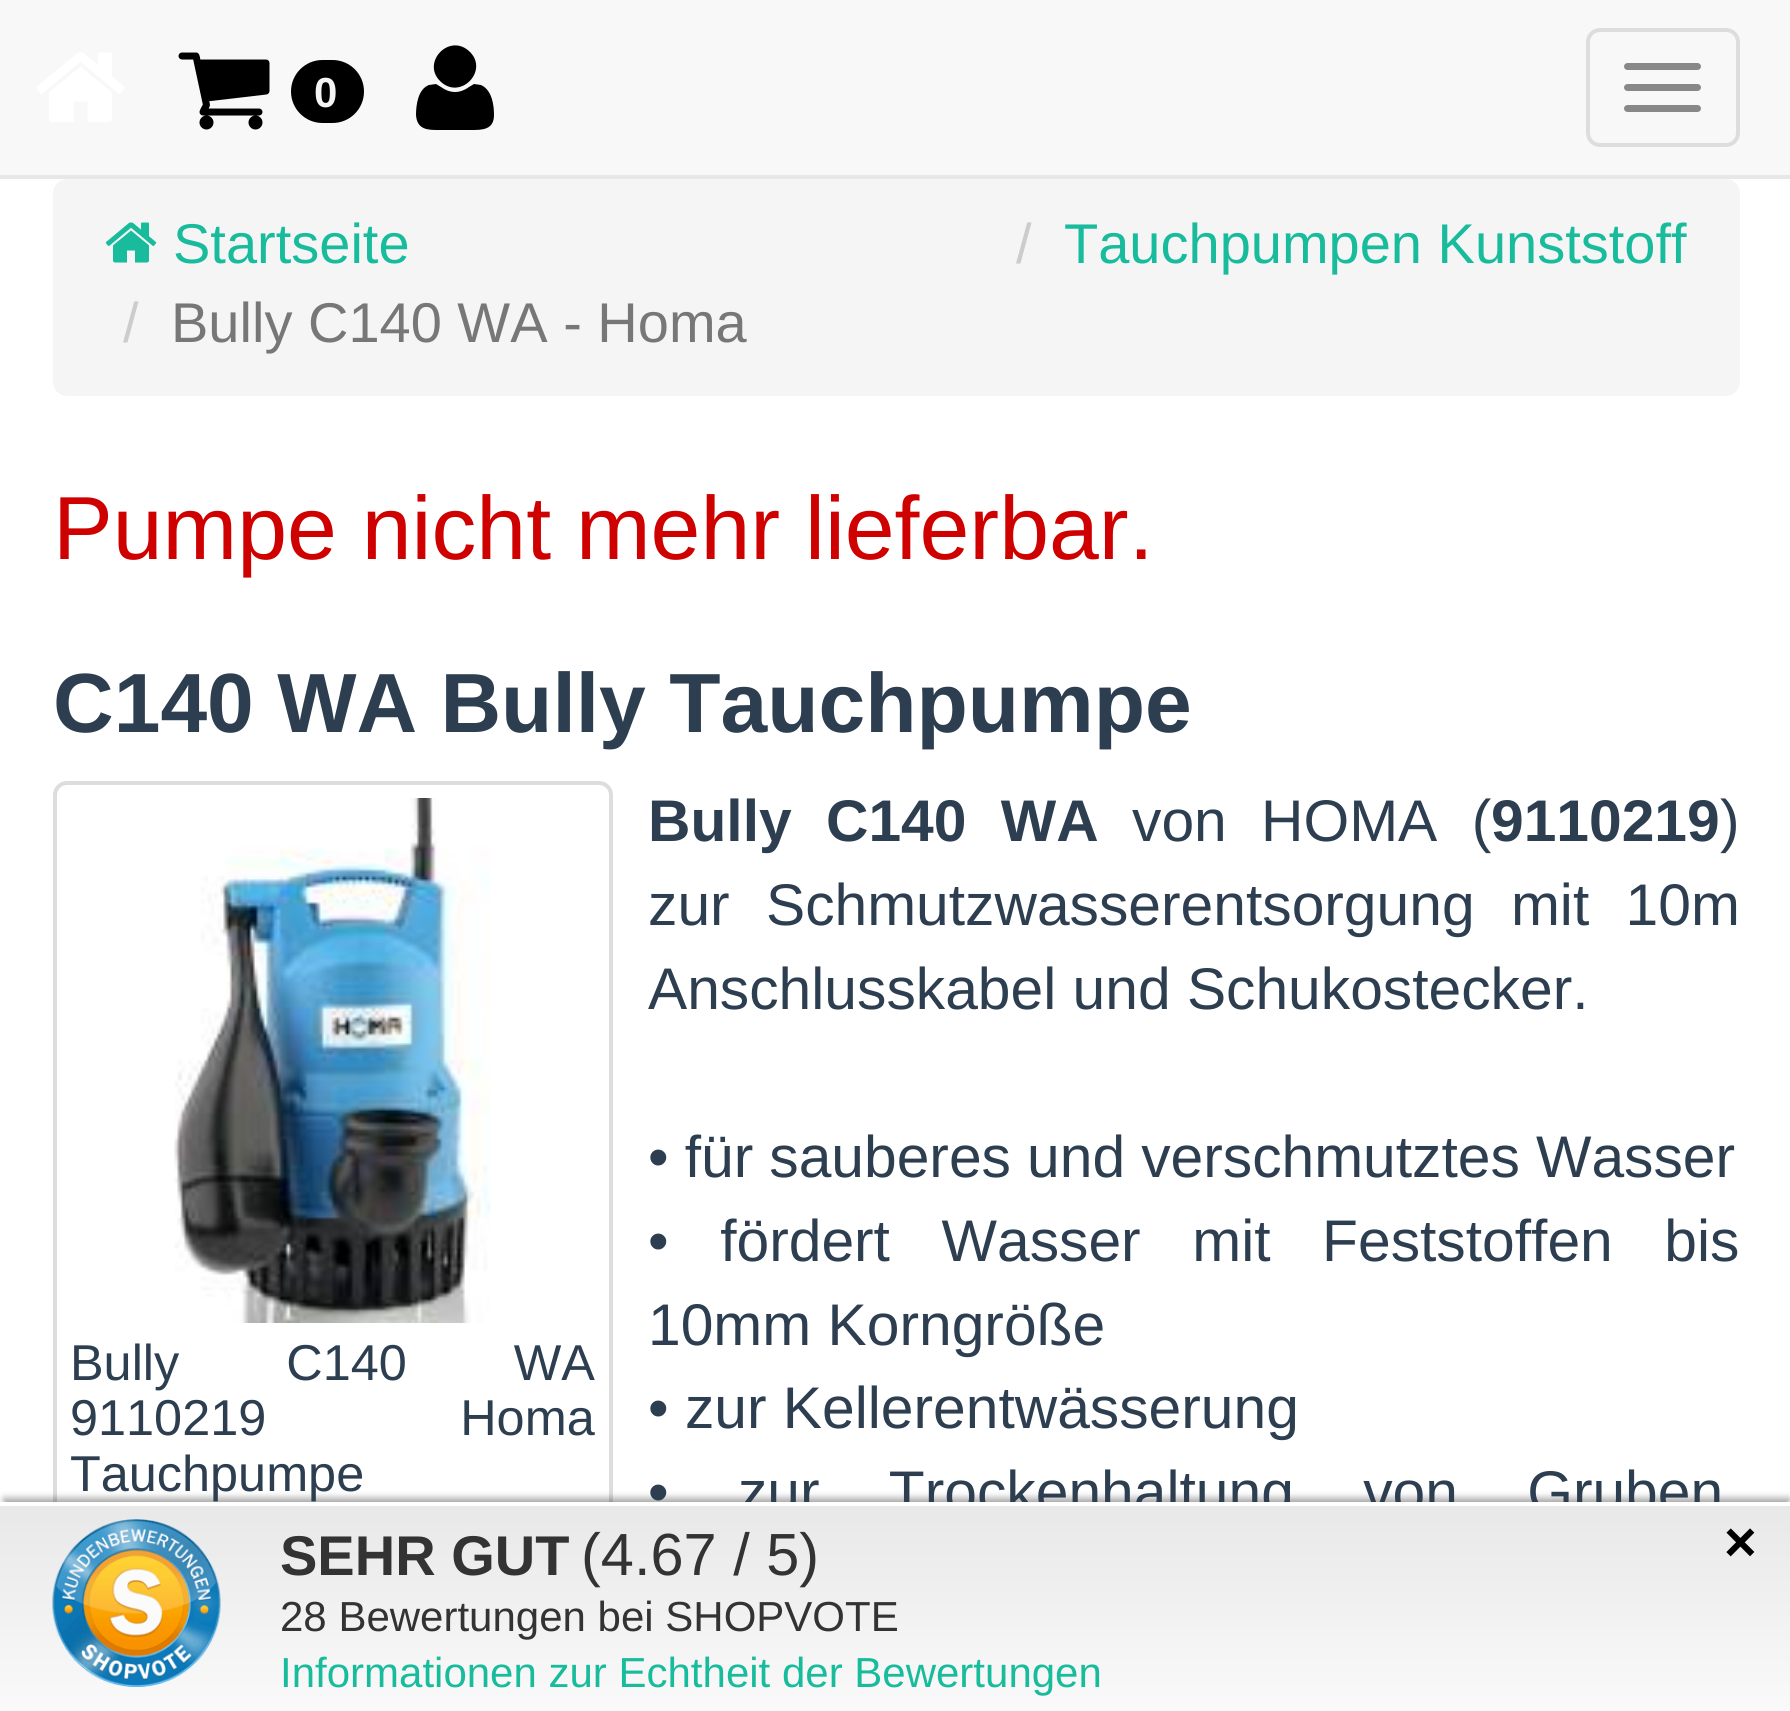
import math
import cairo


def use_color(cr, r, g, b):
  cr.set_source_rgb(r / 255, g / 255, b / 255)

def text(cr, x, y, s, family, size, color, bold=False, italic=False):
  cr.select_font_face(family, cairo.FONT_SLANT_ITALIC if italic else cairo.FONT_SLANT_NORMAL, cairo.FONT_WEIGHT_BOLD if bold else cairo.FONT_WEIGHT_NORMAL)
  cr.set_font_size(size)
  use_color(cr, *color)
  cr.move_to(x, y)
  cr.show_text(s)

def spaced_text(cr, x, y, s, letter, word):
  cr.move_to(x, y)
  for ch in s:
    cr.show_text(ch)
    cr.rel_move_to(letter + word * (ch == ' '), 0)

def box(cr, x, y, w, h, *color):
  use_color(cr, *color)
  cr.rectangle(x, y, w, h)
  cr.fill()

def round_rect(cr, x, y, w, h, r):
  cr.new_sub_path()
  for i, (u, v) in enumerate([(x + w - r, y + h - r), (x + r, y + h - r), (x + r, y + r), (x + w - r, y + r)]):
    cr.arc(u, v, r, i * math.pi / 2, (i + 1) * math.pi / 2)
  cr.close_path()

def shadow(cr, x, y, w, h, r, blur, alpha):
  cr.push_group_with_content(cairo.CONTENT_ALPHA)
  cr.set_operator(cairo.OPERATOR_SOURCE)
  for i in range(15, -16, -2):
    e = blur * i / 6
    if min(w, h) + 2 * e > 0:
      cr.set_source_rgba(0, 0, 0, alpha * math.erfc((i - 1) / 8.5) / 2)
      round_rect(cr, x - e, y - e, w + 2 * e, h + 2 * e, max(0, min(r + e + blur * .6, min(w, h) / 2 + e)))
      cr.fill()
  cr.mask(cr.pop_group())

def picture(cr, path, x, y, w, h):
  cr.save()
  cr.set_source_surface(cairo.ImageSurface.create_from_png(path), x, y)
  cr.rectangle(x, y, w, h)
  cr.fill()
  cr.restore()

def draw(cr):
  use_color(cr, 255, 255, 255)
  cr.paint()
  box(cr, 0, 0, 1790, 175, 248, 248, 248)
  box(cr, 0, 175, 1790, 4, 231, 231, 231)
  picture(cr, "img_01.png", 37, 52, 87, 70)
  picture(cr, "img_02.png", 178, 52, 92, 78)
  use_color(cr, 0, 0, 0)
  round_rect(cr, 291, 60, 73, 63, 31.5)
  cr.fill()
  cr.new_path()
  cr.move_to(494, 115)
  cr.curve_to(494, 130, 482, 130, 471, 130)
  cr.line_to(439, 130)
  cr.curve_to(428, 130, 417, 130, 416, 115)
  cr.curve_to(416, 105, 418, 89, 429, 85)
  cr.line_to(436, 84)
  cr.line_to(441, 87)
  cr.curve_to(445, 90, 450, 92, 455, 92)
  cr.curve_to(460, 92, 465, 90, 469, 87)
  cr.line_to(474, 84)
  cr.line_to(481, 85)
  cr.curve_to(492, 90, 494, 105, 494, 115)
  cr.close_path()
  cr.move_to(470, 52)
  cr.curve_to(489, 71, 460, 101, 440, 81)
  cr.curve_to(421, 62, 450, 32, 470, 52)
  cr.close_path()
  cr.fill()
  round_rect(cr, 1588, 30, 150, 115, 12)
  use_color(cr, 221, 221, 221)
  cr.set_line_width(4)
  cr.stroke()
  use_color(cr, 136, 136, 136)
  round_rect(cr, 1624, 63, 77, 7, 3.5)
  cr.fill()
  round_rect(cr, 1624, 84, 77, 7, 3.5)
  cr.fill()
  round_rect(cr, 1624, 105, 77, 7, 3.5)
  cr.fill()
  use_color(cr, 245, 245, 245)
  round_rect(cr, 53, 179, 1687, 217, 14)
  cr.fill()
  picture(cr, "img_03.png", 105, 222, 52, 41)
  round_rect(cr, 55, 783, 556, 738, 12)
  use_color(cr, 221, 221, 221)
  cr.stroke()
  picture(cr, "img_04.png", 174, 798, 317, 525)
  use_color(cr, 0, 0, 0)
  shadow(cr, 4, 1498, 1785, 203, 0, 3.5, 0.35)
  text(cr, 314, 107, "0", "Liberation Sans", 42, (245, 245, 245), bold=True)
  text(cr, 173, 263, "Startseite", "Liberation Sans", 56, (24, 188, 156))
  text(cr, 1016, 263, "/", "Liberation Sans", 56, (204, 204, 204))
  text(cr, 1064, 263, "Tauchpumpen Kunststoff", "Liberation Sans", 56, (24, 188, 156))
  text(cr, 123, 342, "/", "Liberation Sans", 56, (204, 204, 204))
  text(cr, 171, 342, "Bully C140 WA - Homa", "Liberation Sans", 56, (119, 119, 119))
  text(cr, 53, 559, "Pumpe nicht mehr lieferbar.", "Liberation Sans", 89.6, (206, 0, 0))
  text(cr, 53, 732, "C140 WA Bully Tauchpumpe", "Liberation Sans", 84, (44, 62, 80), bold=True)
  cr.select_font_face("Liberation Sans")
  cr.set_font_size(50.4)
  spaced_text(cr, 70, 1380, "Bully C140 WA", 0, 93)
  spaced_text(cr, 70, 1435, "9110219 Homa", 0, 180)
  text(cr, 70, 1491, "Tauchpumpe", "Liberation Sans", 50.4, (44, 62, 80))
  cr.select_font_face("Liberation Sans", cairo.FONT_SLANT_NORMAL, cairo.FONT_WEIGHT_BOLD)
  cr.set_font_size(58.75)
  spaced_text(cr, 648, 841, "Bully C140 WA", 0, 18)
  cr.select_font_face("Liberation Sans")
  spaced_text(cr, 1132, 841, "von HOMA (", 0, 18)
  text(cr, 1491, 841, "9110219", "Liberation Sans", 58.75, (44, 62, 80), bold=True)
  text(cr, 1720, 841, ")", "Liberation Sans", 58.75, (44, 62, 80))
  spaced_text(cr, 648, 925, "zur Schmutzwasserentsorgung mit 10m", 0, 20)
  text(cr, 648, 1009, "Anschlusskabel und Schukostecker.", "Liberation Sans", 58.75, (44, 62, 80))
  spaced_text(cr, 648, 1177, "• für sauberes und verschmutztes Wasser", 0, -0.25)
  spaced_text(cr, 648, 1261, "• fördert Wasser mit Feststoffen bis", 0, 35.25)
  text(cr, 648, 1345, "10mm Korngröße", "Liberation Sans", 58.75, (44, 62, 80))
  text(cr, 648, 1428, "• zur Kellerentwässerung", "Liberation Sans", 58.75, (44, 62, 80))
  spaced_text(cr, 648, 1512, "• zur Trockenhaltung von Gruben", 0, 53)
  gradient = cairo.LinearGradient(896, 1505, 896, 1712)
  gradient.add_color_stop_rgba(0, 0.941, 0.941, 0.941, 1)
  gradient.add_color_stop_rgba(0, 0.91, 0.91, 0.91, 1)
  gradient.add_color_stop_rgba(1, 0.98, 0.98, 0.98, 1)
  cr.set_source(gradient)
  cr.rectangle(0, 1506, 1790, 205)
  cr.fill()
  box(cr, 0, 1502, 1790, 4, 255, 255, 255)
  picture(cr, "img_05.png", 52, 1519, 169, 168)
  text(cr, 280, 1575, "SEHR GUT", "Liberation Sans", 56, (51, 51, 51), bold=True)
  text(cr, 581, 1575, "(4.67 / 5)", "Liberation Sans", 59.5, (51, 51, 51))
  text(cr, 280, 1631, "28 Bewertungen bei SHOPVOTE", "Liberation Sans", 42, (51, 51, 51))
  text(cr, 280, 1687, "Informationen zur Echtheit der Bewertungen", "Liberation Sans", 42, (24, 188, 156))
  text(cr, 1724, 1561, "×", "Liberation Sans", 56, (0, 0, 0), bold=True)


surface = cairo.ImageSurface(cairo.FORMAT_RGB24, 1790, 1711)
cr = cairo.Context(surface)
options = cairo.FontOptions()
options.set_hint_metrics(cairo.HINT_METRICS_OFF)
options.set_hint_style(cairo.HINT_STYLE_NONE)
cr.set_font_options(options)
cr.set_miter_limit(4)
draw(cr)
surface.write_to_png("out.png")
